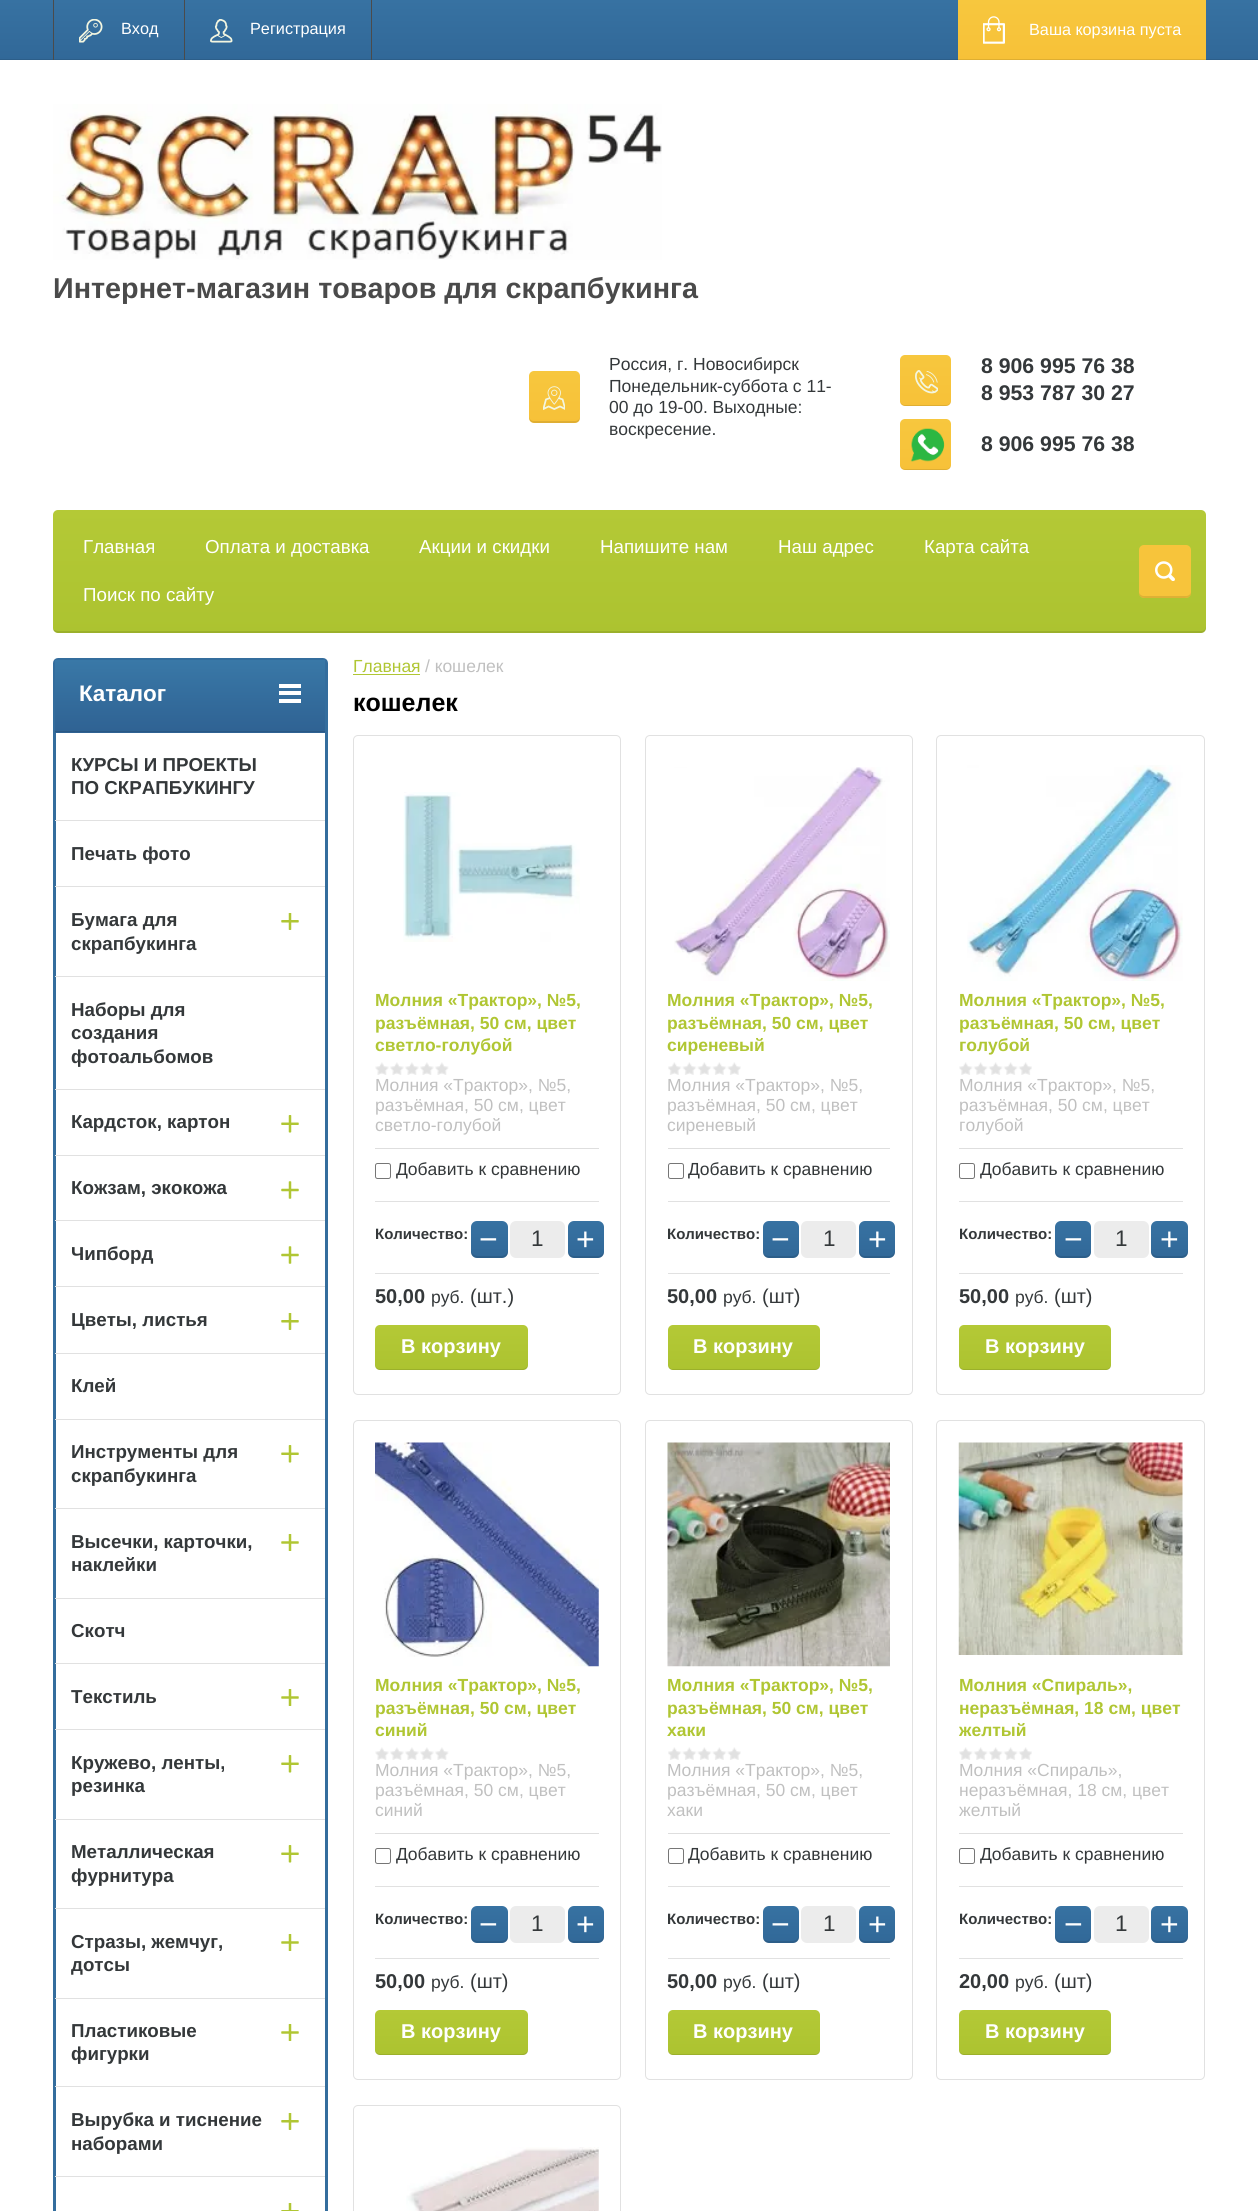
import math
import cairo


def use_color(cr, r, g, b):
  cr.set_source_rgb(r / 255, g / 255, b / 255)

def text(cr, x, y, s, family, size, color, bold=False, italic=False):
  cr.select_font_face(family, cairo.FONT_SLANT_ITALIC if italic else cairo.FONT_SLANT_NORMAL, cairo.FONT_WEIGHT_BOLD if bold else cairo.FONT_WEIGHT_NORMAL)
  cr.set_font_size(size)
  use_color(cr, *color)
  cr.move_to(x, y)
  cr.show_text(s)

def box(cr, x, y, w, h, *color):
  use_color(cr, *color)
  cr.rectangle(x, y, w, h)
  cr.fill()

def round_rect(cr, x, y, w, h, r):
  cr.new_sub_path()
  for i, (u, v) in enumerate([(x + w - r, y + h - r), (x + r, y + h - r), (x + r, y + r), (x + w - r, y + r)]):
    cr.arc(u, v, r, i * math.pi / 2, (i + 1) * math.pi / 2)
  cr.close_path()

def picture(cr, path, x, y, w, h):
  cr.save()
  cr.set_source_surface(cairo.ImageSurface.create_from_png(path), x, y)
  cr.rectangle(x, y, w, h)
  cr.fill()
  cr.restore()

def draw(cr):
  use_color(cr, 255, 255, 255)
  cr.paint()
  gradient = cairo.LinearGradient(629, 60, 629, 0)
  gradient.add_color_stop_rgba(0, 0.192, 0.408, 0.596, 1)
  gradient.add_color_stop_rgba(1, 0.216, 0.447, 0.635, 1)
  cr.set_source(gradient)
  cr.rectangle(0, 0, 1258, 59)
  cr.fill()
  box(cr, 0, 59, 1258, 1, 44, 94, 137)
  box(cr, 53, 0, 1, 60, 75, 75, 75)
  picture(cr, "img_01.png", 79, 19, 24, 24)
  box(cr, 184, 0, 1, 60, 75, 75, 75)
  picture(cr, "img_02.png", 210, 19, 23, 24)
  box(cr, 371, 0, 1, 60, 75, 75, 75)
  gradient = cairo.LinearGradient(1082, 60, 1082, 0)
  gradient.add_color_stop_rgba(0, 0.969, 0.757, 0.22, 1)
  gradient.add_color_stop_rgba(1, 0.969, 0.78, 0.243, 1)
  cr.set_source(gradient)
  cr.rectangle(958, 0, 248, 59)
  cr.fill()
  box(cr, 958, 59, 248, 1, 222, 174, 50)
  picture(cr, "img_03.png", 983, 16, 22, 28)
  picture(cr, "img_04.png", 53, 104, 609, 156)
  gradient = cairo.LinearGradient(554, 423, 554, 371)
  gradient.add_color_stop_rgba(0, 0.969, 0.757, 0.22, 1)
  gradient.add_color_stop_rgba(1, 0.969, 0.78, 0.243, 1)
  cr.set_source(gradient)
  round_rect(cr, 529, 371, 51, 52, 5)
  cr.fill()
  cr.set_source_rgba(0, 0, 0, 0.1)
  cr.new_path()
  cr.move_to(529, 416)
  cr.curve_to(529, 424, 534, 423, 541, 423)
  cr.line_to(568, 423)
  cr.curve_to(575, 423, 580, 424, 580, 416)
  cr.curve_to(580, 419, 578, 421, 575, 421)
  cr.line_to(534, 421)
  cr.curve_to(531, 421, 529, 419, 529, 416)
  cr.close_path()
  cr.fill()
  picture(cr, "img_05.png", 543, 386, 22, 24)
  gradient = cairo.LinearGradient(926, 406, 926, 355)
  gradient.add_color_stop_rgba(0, 0.969, 0.757, 0.22, 1)
  gradient.add_color_stop_rgba(1, 0.969, 0.78, 0.243, 1)
  cr.set_source(gradient)
  round_rect(cr, 900, 355, 51, 51, 5)
  cr.fill()
  cr.set_source_rgba(0, 0, 0, 0.1)
  cr.new_path()
  cr.move_to(900, 400)
  cr.curve_to(900, 407, 906, 406, 912, 406)
  cr.line_to(939, 406)
  cr.curve_to(945, 406, 951, 407, 951, 400)
  cr.curve_to(951, 403, 949, 405, 946, 405)
  cr.line_to(905, 405)
  cr.curve_to(902, 405, 900, 403, 900, 400)
  cr.close_path()
  cr.fill()
  picture(cr, "img_06.png", 915, 370, 23, 24)
  gradient = cairo.LinearGradient(926, 470, 926, 419)
  gradient.add_color_stop_rgba(0, 0.969, 0.757, 0.22, 1)
  gradient.add_color_stop_rgba(1, 0.969, 0.78, 0.243, 1)
  cr.set_source(gradient)
  round_rect(cr, 900, 419, 51, 51, 5)
  cr.fill()
  cr.set_source_rgba(0, 0, 0, 0.1)
  cr.new_path()
  cr.move_to(900, 464)
  cr.curve_to(900, 471, 906, 470, 912, 470)
  cr.line_to(939, 470)
  cr.curve_to(945, 470, 951, 471, 951, 464)
  cr.curve_to(951, 467, 949, 469, 946, 469)
  cr.line_to(905, 469)
  cr.curve_to(902, 469, 900, 467, 900, 464)
  cr.close_path()
  cr.fill()
  picture(cr, "img_07.png", 910, 428, 35, 34)
  gradient = cairo.LinearGradient(629, 633, 629, 510)
  gradient.add_color_stop_rgba(0, 0.675, 0.765, 0.188, 1)
  gradient.add_color_stop_rgba(1, 0.706, 0.788, 0.212, 1)
  cr.set_source(gradient)
  round_rect(cr, 53, 510, 1153, 123, 5)
  cr.fill()
  cr.set_source_rgba(0, 0, 0, 0.1)
  cr.new_path()
  cr.move_to(53, 629)
  cr.curve_to(53, 631, 56, 633, 58, 633)
  cr.line_to(1201, 633)
  cr.curve_to(1204, 633, 1206, 631, 1206, 628)
  cr.line_to(1206, 626)
  cr.curve_to(1206, 629, 1204, 631, 1201, 631)
  cr.line_to(58, 631)
  cr.curve_to(56, 631, 54, 630, 53, 629)
  cr.close_path()
  cr.fill()
  use_color(cr, 247, 196, 59)
  round_rect(cr, 1139, 545, 52, 53, 5)
  cr.fill()
  cr.set_source_rgba(0, 0, 0, 0.1)
  cr.new_path()
  cr.move_to(1139, 591)
  cr.curve_to(1139, 599, 1144, 598, 1151, 598)
  cr.line_to(1179, 598)
  cr.curve_to(1186, 598, 1191, 599, 1191, 591)
  cr.curve_to(1191, 594, 1189, 596, 1186, 596)
  cr.line_to(1144, 596)
  cr.curve_to(1141, 596, 1139, 594, 1139, 591)
  cr.close_path()
  cr.fill()
  picture(cr, "img_08.png", 1155, 561, 20, 20)
  round_rect(cr, 54.5, 659.5, 272, 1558, 3.5)
  use_color(cr, 52, 109, 157)
  cr.set_line_width(3)
  cr.stroke()
  gradient = cairo.LinearGradient(190, 733, 190, 660)
  gradient.add_color_stop_rgba(0, 0.184, 0.384, 0.576, 1)
  gradient.add_color_stop_rgba(1, 0.224, 0.471, 0.655, 1)
  cr.set_source(gradient)
  cr.rectangle(55, 660, 270, 73)
  cr.fill()
  box(cr, 55, 731, 270, 1, 42, 88, 132)
  box(cr, 279, 684, 22, 4, 255, 255, 255)
  box(cr, 279, 691, 22, 4, 255, 255, 255)
  box(cr, 279, 699, 22, 4, 255, 255, 255)
  box(cr, 55, 820, 270, 1, 225, 225, 225)
  box(cr, 55, 886, 270, 1, 225, 225, 225)
  picture(cr, "img_09.png", 281, 913, 18, 17)
  box(cr, 55, 976, 270, 1, 225, 225, 225)
  box(cr, 55, 1089, 270, 1, 225, 225, 225)
  picture(cr, "img_10.png", 281, 1115, 18, 18)
  box(cr, 55, 1155, 270, 1, 225, 225, 225)
  picture(cr, "img_11.png", 281, 1181, 18, 18)
  box(cr, 55, 1220, 270, 1, 225, 225, 225)
  picture(cr, "img_11.png", 281, 1246, 18, 18)
  box(cr, 55, 1286, 270, 1, 225, 225, 225)
  picture(cr, "img_09.png", 281, 1313, 18, 17)
  box(cr, 55, 1353, 270, 1, 225, 225, 225)
  box(cr, 55, 1419, 270, 1, 225, 225, 225)
  picture(cr, "img_10.png", 281, 1445, 18, 18)
  box(cr, 55, 1508, 270, 1, 225, 225, 225)
  picture(cr, "img_12.png", 281, 1534, 18, 17)
  box(cr, 55, 1598, 270, 1, 225, 225, 225)
  box(cr, 55, 1663, 270, 1, 225, 225, 225)
  picture(cr, "img_12.png", 281, 1689, 18, 17)
  box(cr, 55, 1729, 270, 1, 225, 225, 225)
  picture(cr, "img_10.png", 281, 1755, 18, 18)
  box(cr, 55, 1819, 270, 1, 225, 225, 225)
  picture(cr, "img_10.png", 281, 1845, 18, 18)
  box(cr, 55, 1908, 270, 1, 225, 225, 225)
  picture(cr, "img_12.png", 281, 1934, 18, 17)
  box(cr, 55, 1998, 270, 1, 225, 225, 225)
  picture(cr, "img_12.png", 281, 2024, 18, 17)
  box(cr, 55, 2086, 270, 1, 225, 225, 225)
  picture(cr, "img_09.png", 281, 2113, 18, 17)
  box(cr, 55, 2176, 270, 1, 225, 225, 225)
  picture(cr, "img_13.png", 281, 2203, 18, 8)
  box(cr, 353, 674, 67, 1, 176, 198, 51)
  round_rect(cr, 353.5, 735.5, 267, 659, 4.5)
  use_color(cr, 225, 225, 225)
  cr.set_line_width(1)
  cr.stroke()
  picture(cr, "img_14.png", 403, 792, 177, 150)
  picture(cr, "img_15.png", 375, 1062, 74, 13)
  box(cr, 375, 1148, 224, 1, 222, 222, 222)
  round_rect(cr, 375.5, 1163.5, 15, 15, 2)
  use_color(cr, 118, 118, 118)
  cr.stroke()
  box(cr, 375, 1201, 224, 1, 225, 225, 225)
  box(cr, 375, 1273, 224, 1, 225, 225, 225)
  gradient = cairo.LinearGradient(489, 1258, 489, 1221)
  gradient.add_color_stop_rgba(0, 0.192, 0.408, 0.596, 1)
  gradient.add_color_stop_rgba(1, 0.216, 0.447, 0.635, 1)
  cr.set_source(gradient)
  round_rect(cr, 471, 1221, 37, 37, 6)
  cr.fill()
  cr.set_source_rgba(0, 0, 0, 0.1)
  cr.new_path()
  cr.move_to(471, 1250)
  cr.curve_to(471, 1257.5, 474.5, 1258, 481, 1258)
  cr.line_to(498, 1258)
  cr.curve_to(504.5, 1258, 508, 1257.5, 508, 1250)
  cr.curve_to(508, 1253, 505, 1256, 501, 1256)
  cr.line_to(478, 1256)
  cr.curve_to(474, 1256, 471, 1253, 471, 1250)
  cr.close_path()
  cr.fill()
  use_color(cr, 236, 236, 236)
  round_rect(cr, 510, 1221, 55, 37, 6)
  cr.fill()
  gradient = cairo.LinearGradient(586, 1258, 586, 1221)
  gradient.add_color_stop_rgba(0, 0.192, 0.408, 0.596, 1)
  gradient.add_color_stop_rgba(1, 0.216, 0.447, 0.635, 1)
  cr.set_source(gradient)
  round_rect(cr, 568, 1221, 36, 37, 6)
  cr.fill()
  cr.set_source_rgba(0, 0, 0, 0.1)
  cr.new_path()
  cr.move_to(568, 1250)
  cr.curve_to(568, 1257.5, 571, 1258, 578, 1258)
  cr.line_to(594, 1258)
  cr.curve_to(601, 1258, 604, 1257.5, 604, 1250)
  cr.curve_to(604, 1253, 601, 1256, 598, 1256)
  cr.line_to(574, 1256)
  cr.curve_to(570, 1256, 568, 1253, 568, 1250)
  cr.close_path()
  cr.fill()
  gradient = cairo.LinearGradient(451, 1370, 451, 1325)
  gradient.add_color_stop_rgba(0, 0.675, 0.765, 0.188, 1)
  gradient.add_color_stop_rgba(1, 0.706, 0.788, 0.212, 1)
  cr.set_source(gradient)
  round_rect(cr, 375, 1325, 153, 45, 5)
  cr.fill()
  cr.set_source_rgba(0, 0, 0, 0.1)
  cr.new_path()
  cr.move_to(375, 1364)
  cr.line_to(375, 1365)
  cr.curve_to(375, 1368, 377, 1370, 380, 1370)
  cr.line_to(523, 1370)
  cr.curve_to(526, 1370, 528, 1368, 528, 1365)
  cr.line_to(528, 1364)
  cr.curve_to(528, 1367, 525, 1369, 522, 1369)
  cr.line_to(380, 1369)
  cr.curve_to(377, 1369, 375, 1367, 375, 1364)
  cr.close_path()
  cr.fill()
  round_rect(cr, 645.5, 735.5, 267, 659, 4.5)
  use_color(cr, 225, 225, 225)
  cr.stroke()
  picture(cr, "img_16.png", 674, 767, 216, 214)
  picture(cr, "img_17.png", 668, 1062, 73, 13)
  box(cr, 668, 1148, 222, 1, 222, 222, 222)
  round_rect(cr, 668.5, 1163.5, 15, 15, 2)
  use_color(cr, 118, 118, 118)
  cr.stroke()
  box(cr, 668, 1201, 222, 1, 225, 225, 225)
  box(cr, 668, 1273, 222, 1, 225, 225, 225)
  gradient = cairo.LinearGradient(781, 1258, 781, 1221)
  gradient.add_color_stop_rgba(0, 0.192, 0.408, 0.596, 1)
  gradient.add_color_stop_rgba(1, 0.216, 0.447, 0.635, 1)
  cr.set_source(gradient)
  round_rect(cr, 763, 1221, 36, 37, 6)
  cr.fill()
  cr.set_source_rgba(0, 0, 0, 0.1)
  cr.new_path()
  cr.move_to(763, 1253)
  cr.curve_to(763.5, 1256, 766, 1258, 769, 1258)
  cr.line_to(793, 1258)
  cr.curve_to(796.5, 1258, 799, 1255.5, 799, 1252)
  cr.line_to(799, 1250)
  cr.curve_to(799, 1253, 796, 1256, 792, 1256)
  cr.line_to(769, 1256)
  cr.curve_to(766.5, 1256, 764.5, 1255, 763, 1253)
  cr.close_path()
  cr.fill()
  use_color(cr, 236, 236, 236)
  round_rect(cr, 801, 1221, 55, 37, 6)
  cr.fill()
  gradient = cairo.LinearGradient(877, 1258, 877, 1221)
  gradient.add_color_stop_rgba(0, 0.192, 0.408, 0.596, 1)
  gradient.add_color_stop_rgba(1, 0.216, 0.447, 0.635, 1)
  cr.set_source(gradient)
  round_rect(cr, 859, 1221, 36, 37, 6)
  cr.fill()
  cr.set_source_rgba(0, 0, 0, 0.1)
  cr.new_path()
  cr.move_to(859, 1250)
  cr.curve_to(859, 1257.5, 862, 1258, 869, 1258)
  cr.line_to(885, 1258)
  cr.curve_to(892, 1258, 895, 1257.5, 895, 1250)
  cr.curve_to(895, 1253, 892, 1256, 889, 1256)
  cr.line_to(865, 1256)
  cr.curve_to(862, 1256, 859, 1253, 859, 1250)
  cr.close_path()
  cr.fill()
  gradient = cairo.LinearGradient(744, 1370, 744, 1325)
  gradient.add_color_stop_rgba(0, 0.675, 0.765, 0.188, 1)
  gradient.add_color_stop_rgba(1, 0.706, 0.788, 0.212, 1)
  cr.set_source(gradient)
  round_rect(cr, 668, 1325, 152, 45, 5)
  cr.fill()
  cr.set_source_rgba(0, 0, 0, 0.1)
  cr.new_path()
  cr.move_to(668, 1364)
  cr.line_to(668, 1365)
  cr.curve_to(668, 1368, 670, 1370, 673, 1370)
  cr.line_to(815, 1370)
  cr.curve_to(818, 1370, 820, 1368, 820, 1365)
  cr.line_to(820, 1364)
  cr.curve_to(820, 1367, 818, 1369, 815, 1369)
  cr.line_to(672, 1369)
  cr.curve_to(670, 1369, 668, 1367, 668, 1364)
  cr.close_path()
  cr.fill()
  round_rect(cr, 936.5, 735.5, 268, 659, 4.5)
  use_color(cr, 225, 225, 225)
  cr.stroke()
  picture(cr, "img_18.png", 967, 765, 216, 216)
  picture(cr, "img_19.png", 959, 1062, 73, 13)
  box(cr, 959, 1148, 224, 1, 222, 222, 222)
  round_rect(cr, 959.5, 1163.5, 15, 15, 2)
  use_color(cr, 118, 118, 118)
  cr.stroke()
  box(cr, 959, 1201, 224, 1, 225, 225, 225)
  box(cr, 959, 1273, 224, 1, 225, 225, 225)
  gradient = cairo.LinearGradient(1073, 1258, 1073, 1221)
  gradient.add_color_stop_rgba(0, 0.192, 0.408, 0.596, 1)
  gradient.add_color_stop_rgba(1, 0.216, 0.447, 0.635, 1)
  cr.set_source(gradient)
  round_rect(cr, 1055, 1221, 36, 37, 6)
  cr.fill()
  cr.set_source_rgba(0, 0, 0, 0.1)
  cr.new_path()
  cr.move_to(1055, 1250)
  cr.curve_to(1055, 1257.5, 1058, 1258, 1065, 1258)
  cr.line_to(1081, 1258)
  cr.curve_to(1088, 1258, 1091, 1257.5, 1091, 1250)
  cr.curve_to(1091, 1253, 1088, 1256, 1085, 1256)
  cr.line_to(1061, 1256)
  cr.curve_to(1058, 1256, 1055, 1253, 1055, 1250)
  cr.close_path()
  cr.fill()
  use_color(cr, 236, 236, 236)
  round_rect(cr, 1094, 1221, 55, 37, 6)
  cr.fill()
  gradient = cairo.LinearGradient(1169, 1258, 1169, 1221)
  gradient.add_color_stop_rgba(0, 0.192, 0.408, 0.596, 1)
  gradient.add_color_stop_rgba(1, 0.216, 0.447, 0.635, 1)
  cr.set_source(gradient)
  round_rect(cr, 1151, 1221, 37, 37, 6)
  cr.fill()
  cr.set_source_rgba(0, 0, 0, 0.1)
  cr.new_path()
  cr.move_to(1151, 1250)
  cr.curve_to(1151, 1257.5, 1154.5, 1258, 1161, 1258)
  cr.line_to(1178, 1258)
  cr.curve_to(1184.5, 1258, 1188, 1257.5, 1188, 1250)
  cr.curve_to(1188, 1253, 1185, 1256, 1181, 1256)
  cr.line_to(1158, 1256)
  cr.curve_to(1154, 1256, 1151, 1253, 1151, 1250)
  cr.close_path()
  cr.fill()
  gradient = cairo.LinearGradient(1035, 1370, 1035, 1325)
  gradient.add_color_stop_rgba(0, 0.675, 0.765, 0.188, 1)
  gradient.add_color_stop_rgba(1, 0.706, 0.788, 0.212, 1)
  cr.set_source(gradient)
  round_rect(cr, 959, 1325, 152, 45, 5)
  cr.fill()
  cr.set_source_rgba(0, 0, 0, 0.1)
  cr.new_path()
  cr.move_to(959, 1364)
  cr.line_to(959, 1365)
  cr.curve_to(959, 1368, 961, 1370, 964, 1370)
  cr.line_to(1106, 1370)
  cr.curve_to(1109, 1370, 1111, 1368, 1111, 1365)
  cr.line_to(1111, 1364)
  cr.curve_to(1111, 1367, 1109, 1369, 1106, 1369)
  cr.line_to(964, 1369)
  cr.curve_to(961, 1369, 959, 1367, 959, 1364)
  cr.close_path()
  cr.fill()
  round_rect(cr, 353.5, 1420.5, 267, 659, 4.5)
  use_color(cr, 225, 225, 225)
  cr.stroke()
  picture(cr, "img_20.png", 375, 1442, 224, 225)
  picture(cr, "img_15.png", 375, 1747, 74, 13)
  box(cr, 375, 1833, 224, 1, 222, 222, 222)
  round_rect(cr, 375.5, 1848.5, 15, 15, 2)
  use_color(cr, 118, 118, 118)
  cr.stroke()
  box(cr, 375, 1886, 224, 1, 225, 225, 225)
  box(cr, 375, 1958, 224, 1, 225, 225, 225)
  gradient = cairo.LinearGradient(489, 1943, 489, 1906)
  gradient.add_color_stop_rgba(0, 0.192, 0.408, 0.596, 1)
  gradient.add_color_stop_rgba(1, 0.216, 0.447, 0.635, 1)
  cr.set_source(gradient)
  round_rect(cr, 471, 1906, 37, 37, 6)
  cr.fill()
  cr.set_source_rgba(0, 0, 0, 0.1)
  cr.new_path()
  cr.move_to(471, 1935)
  cr.curve_to(471, 1942.5, 474.5, 1943, 481, 1943)
  cr.line_to(498, 1943)
  cr.curve_to(504.5, 1943, 508, 1942.5, 508, 1935)
  cr.curve_to(508, 1938, 505, 1941, 501, 1941)
  cr.line_to(478, 1941)
  cr.curve_to(474, 1941, 471, 1938, 471, 1935)
  cr.close_path()
  cr.fill()
  use_color(cr, 236, 236, 236)
  round_rect(cr, 510, 1906, 55, 37, 6)
  cr.fill()
  gradient = cairo.LinearGradient(586, 1943, 586, 1906)
  gradient.add_color_stop_rgba(0, 0.192, 0.408, 0.596, 1)
  gradient.add_color_stop_rgba(1, 0.216, 0.447, 0.635, 1)
  cr.set_source(gradient)
  round_rect(cr, 568, 1906, 36, 37, 6)
  cr.fill()
  cr.set_source_rgba(0, 0, 0, 0.1)
  cr.new_path()
  cr.move_to(568, 1935)
  cr.curve_to(568, 1942.5, 571, 1943, 578, 1943)
  cr.line_to(594, 1943)
  cr.curve_to(601, 1943, 604, 1942.5, 604, 1935)
  cr.curve_to(604, 1938, 601, 1941, 598, 1941)
  cr.line_to(574, 1941)
  cr.curve_to(570, 1941, 568, 1938, 568, 1935)
  cr.close_path()
  cr.fill()
  gradient = cairo.LinearGradient(451, 2055, 451, 2010)
  gradient.add_color_stop_rgba(0, 0.675, 0.765, 0.188, 1)
  gradient.add_color_stop_rgba(1, 0.706, 0.788, 0.212, 1)
  cr.set_source(gradient)
  round_rect(cr, 375, 2010, 153, 45, 5)
  cr.fill()
  cr.set_source_rgba(0, 0, 0, 0.1)
  cr.new_path()
  cr.move_to(375, 2049)
  cr.line_to(375, 2050)
  cr.curve_to(375, 2053, 377, 2055, 380, 2055)
  cr.line_to(523, 2055)
  cr.curve_to(526, 2055, 528, 2053, 528, 2050)
  cr.line_to(528, 2049)
  cr.curve_to(528, 2052, 525, 2054, 522, 2054)
  cr.line_to(380, 2054)
  cr.curve_to(377, 2054, 375, 2052, 375, 2049)
  cr.close_path()
  cr.fill()
  round_rect(cr, 645.5, 1420.5, 267, 659, 4.5)
  use_color(cr, 225, 225, 225)
  cr.stroke()
  picture(cr, "img_21.png", 667, 1442, 223, 225)
  picture(cr, "img_17.png", 668, 1747, 73, 13)
  box(cr, 668, 1833, 222, 1, 222, 222, 222)
  round_rect(cr, 668.5, 1848.5, 15, 15, 2)
  use_color(cr, 118, 118, 118)
  cr.stroke()
  box(cr, 668, 1886, 222, 1, 225, 225, 225)
  box(cr, 668, 1958, 222, 1, 225, 225, 225)
  gradient = cairo.LinearGradient(781, 1943, 781, 1906)
  gradient.add_color_stop_rgba(0, 0.192, 0.408, 0.596, 1)
  gradient.add_color_stop_rgba(1, 0.216, 0.447, 0.635, 1)
  cr.set_source(gradient)
  round_rect(cr, 763, 1906, 36, 37, 6)
  cr.fill()
  cr.set_source_rgba(0, 0, 0, 0.1)
  cr.new_path()
  cr.move_to(763, 1938)
  cr.curve_to(763.5, 1941, 766, 1943, 769, 1943)
  cr.line_to(793, 1943)
  cr.curve_to(796.5, 1943, 799, 1940.5, 799, 1937)
  cr.line_to(799, 1935)
  cr.curve_to(799, 1938, 796, 1941, 792, 1941)
  cr.line_to(769, 1941)
  cr.curve_to(766.5, 1941, 764.5, 1940, 763, 1938)
  cr.close_path()
  cr.fill()
  use_color(cr, 236, 236, 236)
  round_rect(cr, 801, 1906, 55, 37, 6)
  cr.fill()
  gradient = cairo.LinearGradient(877, 1943, 877, 1906)
  gradient.add_color_stop_rgba(0, 0.192, 0.408, 0.596, 1)
  gradient.add_color_stop_rgba(1, 0.216, 0.447, 0.635, 1)
  cr.set_source(gradient)
  round_rect(cr, 859, 1906, 36, 37, 6)
  cr.fill()
  cr.set_source_rgba(0, 0, 0, 0.1)
  cr.new_path()
  cr.move_to(859, 1935)
  cr.curve_to(859, 1942.5, 862, 1943, 869, 1943)
  cr.line_to(885, 1943)
  cr.curve_to(892, 1943, 895, 1942.5, 895, 1935)
  cr.curve_to(895, 1938, 892, 1941, 889, 1941)
  cr.line_to(865, 1941)
  cr.curve_to(862, 1941, 859, 1938, 859, 1935)
  cr.close_path()
  cr.fill()
  gradient = cairo.LinearGradient(744, 2055, 744, 2010)
  gradient.add_color_stop_rgba(0, 0.675, 0.765, 0.188, 1)
  gradient.add_color_stop_rgba(1, 0.706, 0.788, 0.212, 1)
  cr.set_source(gradient)
  round_rect(cr, 668, 2010, 152, 45, 5)
  cr.fill()
  cr.set_source_rgba(0, 0, 0, 0.1)
  cr.new_path()
  cr.move_to(668, 2049)
  cr.line_to(668, 2050)
  cr.curve_to(668, 2053, 670, 2055, 673, 2055)
  cr.line_to(815, 2055)
  cr.curve_to(818, 2055, 820, 2053, 820, 2050)
  cr.line_to(820, 2049)
  cr.curve_to(820, 2052, 818, 2054, 815, 2054)
  cr.line_to(672, 2054)
  cr.curve_to(670, 2054, 668, 2052, 668, 2049)
  cr.close_path()
  cr.fill()
  round_rect(cr, 936.5, 1420.5, 268, 659, 4.5)
  use_color(cr, 225, 225, 225)
  cr.stroke()
  picture(cr, "img_22.png", 958, 1442, 225, 213)
  picture(cr, "img_19.png", 959, 1747, 73, 13)
  box(cr, 959, 1833, 224, 1, 222, 222, 222)
  round_rect(cr, 959.5, 1848.5, 15, 15, 2)
  use_color(cr, 118, 118, 118)
  cr.stroke()
  box(cr, 959, 1886, 224, 1, 225, 225, 225)
  box(cr, 959, 1958, 224, 1, 225, 225, 225)
  gradient = cairo.LinearGradient(1073, 1943, 1073, 1906)
  gradient.add_color_stop_rgba(0, 0.192, 0.408, 0.596, 1)
  gradient.add_color_stop_rgba(1, 0.216, 0.447, 0.635, 1)
  cr.set_source(gradient)
  round_rect(cr, 1055, 1906, 36, 37, 6)
  cr.fill()
  cr.set_source_rgba(0, 0, 0, 0.1)
  cr.new_path()
  cr.move_to(1055, 1935)
  cr.curve_to(1055, 1942.5, 1058, 1943, 1065, 1943)
  cr.line_to(1081, 1943)
  cr.curve_to(1088, 1943, 1091, 1942.5, 1091, 1935)
  cr.curve_to(1091, 1938, 1088, 1941, 1085, 1941)
  cr.line_to(1061, 1941)
  cr.curve_to(1058, 1941, 1055, 1938, 1055, 1935)
  cr.close_path()
  cr.fill()
  use_color(cr, 236, 236, 236)
  round_rect(cr, 1094, 1906, 55, 37, 6)
  cr.fill()
  gradient = cairo.LinearGradient(1169, 1943, 1169, 1906)
  gradient.add_color_stop_rgba(0, 0.192, 0.408, 0.596, 1)
  gradient.add_color_stop_rgba(1, 0.216, 0.447, 0.635, 1)
  cr.set_source(gradient)
  round_rect(cr, 1151, 1906, 37, 37, 6)
  cr.fill()
  cr.set_source_rgba(0, 0, 0, 0.1)
  cr.new_path()
  cr.move_to(1151, 1935)
  cr.curve_to(1151, 1942.5, 1154.5, 1943, 1161, 1943)
  cr.line_to(1178, 1943)
  cr.curve_to(1184.5, 1943, 1188, 1942.5, 1188, 1935)
  cr.curve_to(1188, 1938, 1185, 1941, 1181, 1941)
  cr.line_to(1158, 1941)
  cr.curve_to(1154, 1941, 1151, 1938, 1151, 1935)
  cr.close_path()
  cr.fill()
  gradient = cairo.LinearGradient(1035, 2055, 1035, 2010)
  gradient.add_color_stop_rgba(0, 0.675, 0.765, 0.188, 1)
  gradient.add_color_stop_rgba(1, 0.706, 0.788, 0.212, 1)
  cr.set_source(gradient)
  round_rect(cr, 959, 2010, 152, 45, 5)
  cr.fill()
  cr.set_source_rgba(0, 0, 0, 0.1)
  cr.new_path()
  cr.move_to(959, 2049)
  cr.line_to(959, 2050)
  cr.curve_to(959, 2053, 961, 2055, 964, 2055)
  cr.line_to(1106, 2055)
  cr.curve_to(1109, 2055, 1111, 2053, 1111, 2050)
  cr.line_to(1111, 2049)
  cr.curve_to(1111, 2052, 1109, 2054, 1106, 2054)
  cr.line_to(964, 2054)
  cr.curve_to(961, 2054, 959, 2052, 959, 2049)
  cr.close_path()
  cr.fill()
  round_rect(cr, 353.5, 2105.5, 267, 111, 4.5)
  use_color(cr, 225, 225, 225)
  cr.stroke()
  picture(cr, "img_23.png", 406, 2147, 193, 64)
  text(cr, 121, 34, "Вход", "Liberation Sans", 16.25, (255, 255, 255))
  text(cr, 250, 34, "Регистрация", "Liberation Sans", 16.25, (255, 255, 255))
  text(cr, 1029, 35, "Ваша корзина пуста", "Liberation Sans", 16.25, (255, 255, 255))
  text(cr, 53, 298, "Интернет-магазин товаров для скрапбукинга", "Liberation Sans", 28.75, (74, 74, 74), bold=True)
  text(cr, 609, 370, "Россия, г. Новосибирск", "Liberation Sans", 17.5, (52, 56, 58))
  text(cr, 609, 392, "Понедельник-суббота с 11-", "Liberation Sans", 17.5, (52, 56, 58))
  text(cr, 609, 413, "00 до 19-00. Выходные:", "Liberation Sans", 17.5, (52, 56, 58))
  text(cr, 609, 435, "воскресение.", "Liberation Sans", 17.5, (52, 56, 58))
  text(cr, 981, 373, "8 906 995 76 38", "Liberation Sans", 21.25, (52, 56, 58), bold=True)
  text(cr, 981, 400, "8 953 787 30 27", "Liberation Sans", 21.25, (52, 56, 58), bold=True)
  text(cr, 981, 451, "8 906 995 76 38", "Liberation Sans", 21.25, (52, 56, 58), bold=True)
  text(cr, 83, 553, "Главная", "Liberation Sans", 18.75, (255, 255, 255))
  text(cr, 205, 553, "Оплата и доставка", "Liberation Sans", 18.75, (255, 255, 255))
  text(cr, 419, 553, "Акции и скидки", "Liberation Sans", 18.75, (255, 255, 255))
  text(cr, 600, 553, "Напишите нам", "Liberation Sans", 18.75, (255, 255, 255))
  text(cr, 778, 553, "Наш адрес", "Liberation Sans", 18.75, (255, 255, 255))
  text(cr, 924, 553, "Карта сайта", "Liberation Sans", 18.75, (255, 255, 255))
  text(cr, 83, 601, "Поиск по сайту", "Liberation Sans", 18.75, (255, 255, 255))
  text(cr, 79, 701, "Каталог", "Liberation Sans", 22.5, (255, 255, 255), bold=True)
  text(cr, 71, 771, "КУРСЫ И ПРОЕКТЫ", "Liberation Sans", 18.75, (52, 56, 58), bold=True)
  text(cr, 71, 794, "ПО СКРАПБУКИНГУ", "Liberation Sans", 18.75, (52, 56, 58), bold=True)
  text(cr, 71, 860, "Печать фото", "Liberation Sans", 18.75, (52, 56, 58), bold=True)
  text(cr, 71, 926, "Бумага для", "Liberation Sans", 18.75, (52, 56, 58), bold=True)
  text(cr, 71, 950, "скрапбукинга", "Liberation Sans", 18.75, (52, 56, 58), bold=True)
  text(cr, 71, 1016, "Наборы для", "Liberation Sans", 18.75, (52, 56, 58), bold=True)
  text(cr, 71, 1039, "создания", "Liberation Sans", 18.75, (52, 56, 58), bold=True)
  text(cr, 71, 1063, "фотоальбомов", "Liberation Sans", 18.75, (52, 56, 58), bold=True)
  text(cr, 71, 1128, "Кардсток, картон", "Liberation Sans", 18.75, (52, 56, 58), bold=True)
  text(cr, 71, 1194, "Кожзам, экокожа", "Liberation Sans", 18.75, (52, 56, 58), bold=True)
  text(cr, 71, 1260, "Чипборд", "Liberation Sans", 18.75, (52, 56, 58), bold=True)
  text(cr, 71, 1326, "Цветы, листья", "Liberation Sans", 18.75, (52, 56, 58), bold=True)
  text(cr, 71, 1392, "Клей", "Liberation Sans", 18.75, (52, 56, 58), bold=True)
  text(cr, 71, 1458, "Инструменты для", "Liberation Sans", 18.75, (52, 56, 58), bold=True)
  text(cr, 71, 1482, "скрапбукинга", "Liberation Sans", 18.75, (52, 56, 58), bold=True)
  text(cr, 71, 1548, "Высечки, карточки,", "Liberation Sans", 18.75, (52, 56, 58), bold=True)
  text(cr, 71, 1571, "наклейки", "Liberation Sans", 18.75, (52, 56, 58), bold=True)
  text(cr, 71, 1637, "Скотч", "Liberation Sans", 18.75, (52, 56, 58), bold=True)
  text(cr, 71, 1703, "Текстиль", "Liberation Sans", 18.75, (52, 56, 58), bold=True)
  text(cr, 71, 1769, "Кружево, ленты,", "Liberation Sans", 18.75, (52, 56, 58), bold=True)
  text(cr, 71, 1792, "резинка", "Liberation Sans", 18.75, (52, 56, 58), bold=True)
  text(cr, 71, 1858, "Металлическая", "Liberation Sans", 18.75, (52, 56, 58), bold=True)
  text(cr, 71, 1882, "фурнитура", "Liberation Sans", 18.75, (52, 56, 58), bold=True)
  text(cr, 71, 1948, "Стразы, жемчуг,", "Liberation Sans", 18.75, (52, 56, 58), bold=True)
  text(cr, 71, 1971, "дотсы", "Liberation Sans", 18.75, (52, 56, 58), bold=True)
  text(cr, 71, 2037, "Пластиковые", "Liberation Sans", 18.75, (52, 56, 58), bold=True)
  text(cr, 71, 2060, "фигурки", "Liberation Sans", 18.75, (52, 56, 58), bold=True)
  text(cr, 71, 2126, "Вырубка и тиснение", "Liberation Sans", 18.75, (52, 56, 58), bold=True)
  text(cr, 71, 2150, "наборами", "Liberation Sans", 18.75, (52, 56, 58), bold=True)
  text(cr, 353, 672, "Главная", "Liberation Sans", 17.5, (176, 198, 51))
  text(cr, 425, 672, "/ кошелек", "Liberation Sans", 17.5, (192, 192, 192))
  text(cr, 353, 711, "кошелек", "Liberation Sans", 25, (0, 0, 0), bold=True)
  text(cr, 375, 1006, "Молния «Трактор», №5,", "Liberation Sans", 17.5, (176, 198, 51), bold=True)
  text(cr, 375, 1029, "разъёмная, 50 см, цвет", "Liberation Sans", 17.5, (176, 198, 51), bold=True)
  text(cr, 375, 1051, "светло-голубой", "Liberation Sans", 17.5, (176, 198, 51), bold=True)
  text(cr, 375, 1091, "Молния «Трактор», №5,", "Liberation Sans", 17.5, (192, 192, 192))
  text(cr, 375, 1111, "разъёмная, 50 см, цвет", "Liberation Sans", 17.5, (192, 192, 192))
  text(cr, 375, 1131, "светло-голубой", "Liberation Sans", 17.5, (192, 192, 192))
  text(cr, 396, 1175, "Добавить к сравнению", "Liberation Sans", 17.5, (52, 56, 58))
  text(cr, 375, 1239, "Количество:", "Liberation Sans", 15, (52, 56, 58), bold=True)
  text(cr, 479, 1250, "−", "Liberation Sans", 32, (255, 255, 255))
  text(cr, 531, 1246, "1", "Liberation Sans", 22.5, (52, 56, 58))
  text(cr, 576, 1250, "+", "Liberation Sans", 32, (255, 255, 255))
  text(cr, 375, 1303, "50,00", "Liberation Sans", 20, (52, 56, 58), bold=True)
  text(cr, 431, 1303, "руб.", "Liberation Sans", 17.5, (52, 56, 58))
  text(cr, 470, 1303, "(шт.)", "Liberation Sans", 20, (52, 56, 58))
  text(cr, 401, 1353, "В корзину", "Liberation Sans", 20, (255, 255, 255), bold=True)
  text(cr, 667, 1006, "Молния «Трактор», №5,", "Liberation Sans", 17.5, (176, 198, 51), bold=True)
  text(cr, 667, 1029, "разъёмная, 50 см, цвет", "Liberation Sans", 17.5, (176, 198, 51), bold=True)
  text(cr, 667, 1051, "сиреневый", "Liberation Sans", 17.5, (176, 198, 51), bold=True)
  text(cr, 667, 1091, "Молния «Трактор», №5,", "Liberation Sans", 17.5, (192, 192, 192))
  text(cr, 667, 1111, "разъёмная, 50 см, цвет", "Liberation Sans", 17.5, (192, 192, 192))
  text(cr, 667, 1131, "сиреневый", "Liberation Sans", 17.5, (192, 192, 192))
  text(cr, 688, 1175, "Добавить к сравнению", "Liberation Sans", 17.5, (52, 56, 58))
  text(cr, 667, 1239, "Количество:", "Liberation Sans", 15, (52, 56, 58), bold=True)
  text(cr, 771, 1250, "−", "Liberation Sans", 32, (255, 255, 255))
  text(cr, 823, 1246, "1", "Liberation Sans", 22.5, (52, 56, 58))
  text(cr, 868, 1250, "+", "Liberation Sans", 32, (255, 255, 255))
  text(cr, 667, 1303, "50,00", "Liberation Sans", 20, (52, 56, 58), bold=True)
  text(cr, 723, 1303, "руб.", "Liberation Sans", 17.5, (52, 56, 58))
  text(cr, 762, 1303, "(шт)", "Liberation Sans", 20, (52, 56, 58))
  text(cr, 693, 1353, "В корзину", "Liberation Sans", 20, (255, 255, 255), bold=True)
  text(cr, 959, 1006, "Молния «Трактор», №5,", "Liberation Sans", 17.5, (176, 198, 51), bold=True)
  text(cr, 959, 1029, "разъёмная, 50 см, цвет", "Liberation Sans", 17.5, (176, 198, 51), bold=True)
  text(cr, 959, 1051, "голубой", "Liberation Sans", 17.5, (176, 198, 51), bold=True)
  text(cr, 959, 1091, "Молния «Трактор», №5,", "Liberation Sans", 17.5, (192, 192, 192))
  text(cr, 959, 1111, "разъёмная, 50 см, цвет", "Liberation Sans", 17.5, (192, 192, 192))
  text(cr, 959, 1131, "голубой", "Liberation Sans", 17.5, (192, 192, 192))
  text(cr, 980, 1175, "Добавить к сравнению", "Liberation Sans", 17.5, (52, 56, 58))
  text(cr, 959, 1239, "Количество:", "Liberation Sans", 15, (52, 56, 58), bold=True)
  text(cr, 1064, 1250, "−", "Liberation Sans", 32, (255, 255, 255))
  text(cr, 1115, 1246, "1", "Liberation Sans", 22.5, (52, 56, 58))
  text(cr, 1160, 1250, "+", "Liberation Sans", 32, (255, 255, 255))
  text(cr, 959, 1303, "50,00", "Liberation Sans", 20, (52, 56, 58), bold=True)
  text(cr, 1015, 1303, "руб.", "Liberation Sans", 17.5, (52, 56, 58))
  text(cr, 1054, 1303, "(шт)", "Liberation Sans", 20, (52, 56, 58))
  text(cr, 985, 1353, "В корзину", "Liberation Sans", 20, (255, 255, 255), bold=True)
  text(cr, 375, 1691, "Молния «Трактор», №5,", "Liberation Sans", 17.5, (176, 198, 51), bold=True)
  text(cr, 375, 1714, "разъёмная, 50 см, цвет", "Liberation Sans", 17.5, (176, 198, 51), bold=True)
  text(cr, 375, 1736, "синий", "Liberation Sans", 17.5, (176, 198, 51), bold=True)
  text(cr, 375, 1776, "Молния «Трактор», №5,", "Liberation Sans", 17.5, (192, 192, 192))
  text(cr, 375, 1796, "разъёмная, 50 см, цвет", "Liberation Sans", 17.5, (192, 192, 192))
  text(cr, 375, 1816, "синий", "Liberation Sans", 17.5, (192, 192, 192))
  text(cr, 396, 1860, "Добавить к сравнению", "Liberation Sans", 17.5, (52, 56, 58))
  text(cr, 375, 1924, "Количество:", "Liberation Sans", 15, (52, 56, 58), bold=True)
  text(cr, 479, 1935, "−", "Liberation Sans", 32, (255, 255, 255))
  text(cr, 531, 1931, "1", "Liberation Sans", 22.5, (52, 56, 58))
  text(cr, 576, 1935, "+", "Liberation Sans", 32, (255, 255, 255))
  text(cr, 375, 1988, "50,00", "Liberation Sans", 20, (52, 56, 58), bold=True)
  text(cr, 431, 1988, "руб.", "Liberation Sans", 17.5, (52, 56, 58))
  text(cr, 470, 1988, "(шт)", "Liberation Sans", 20, (52, 56, 58))
  text(cr, 401, 2038, "В корзину", "Liberation Sans", 20, (255, 255, 255), bold=True)
  text(cr, 667, 1691, "Молния «Трактор», №5,", "Liberation Sans", 17.5, (176, 198, 51), bold=True)
  text(cr, 667, 1714, "разъёмная, 50 см, цвет", "Liberation Sans", 17.5, (176, 198, 51), bold=True)
  text(cr, 667, 1736, "хаки", "Liberation Sans", 17.5, (176, 198, 51), bold=True)
  text(cr, 667, 1776, "Молния «Трактор», №5,", "Liberation Sans", 17.5, (192, 192, 192))
  text(cr, 667, 1796, "разъёмная, 50 см, цвет", "Liberation Sans", 17.5, (192, 192, 192))
  text(cr, 667, 1816, "хаки", "Liberation Sans", 17.5, (192, 192, 192))
  text(cr, 688, 1860, "Добавить к сравнению", "Liberation Sans", 17.5, (52, 56, 58))
  text(cr, 667, 1924, "Количество:", "Liberation Sans", 15, (52, 56, 58), bold=True)
  text(cr, 771, 1935, "−", "Liberation Sans", 32, (255, 255, 255))
  text(cr, 823, 1931, "1", "Liberation Sans", 22.5, (52, 56, 58))
  text(cr, 868, 1935, "+", "Liberation Sans", 32, (255, 255, 255))
  text(cr, 667, 1988, "50,00", "Liberation Sans", 20, (52, 56, 58), bold=True)
  text(cr, 723, 1988, "руб.", "Liberation Sans", 17.5, (52, 56, 58))
  text(cr, 762, 1988, "(шт)", "Liberation Sans", 20, (52, 56, 58))
  text(cr, 693, 2038, "В корзину", "Liberation Sans", 20, (255, 255, 255), bold=True)
  text(cr, 959, 1691, "Молния «Спираль»,", "Liberation Sans", 17.5, (176, 198, 51), bold=True)
  text(cr, 959, 1714, "неразъёмная, 18 см, цвет", "Liberation Sans", 17.5, (176, 198, 51), bold=True)
  text(cr, 959, 1736, "желтый", "Liberation Sans", 17.5, (176, 198, 51), bold=True)
  text(cr, 959, 1776, "Молния «Спираль»,", "Liberation Sans", 17.5, (192, 192, 192))
  text(cr, 959, 1796, "неразъёмная, 18 см, цвет", "Liberation Sans", 17.5, (192, 192, 192))
  text(cr, 959, 1816, "желтый", "Liberation Sans", 17.5, (192, 192, 192))
  text(cr, 980, 1860, "Добавить к сравнению", "Liberation Sans", 17.5, (52, 56, 58))
  text(cr, 959, 1924, "Количество:", "Liberation Sans", 15, (52, 56, 58), bold=True)
  text(cr, 1064, 1935, "−", "Liberation Sans", 32, (255, 255, 255))
  text(cr, 1115, 1931, "1", "Liberation Sans", 22.5, (52, 56, 58))
  text(cr, 1160, 1935, "+", "Liberation Sans", 32, (255, 255, 255))
  text(cr, 959, 1988, "20,00", "Liberation Sans", 20, (52, 56, 58), bold=True)
  text(cr, 1015, 1988, "руб.", "Liberation Sans", 17.5, (52, 56, 58))
  text(cr, 1054, 1988, "(шт)", "Liberation Sans", 20, (52, 56, 58))
  text(cr, 985, 2038, "В корзину", "Liberation Sans", 20, (255, 255, 255), bold=True)


surface = cairo.ImageSurface(cairo.FORMAT_RGB24, 1258, 2211)
cr = cairo.Context(surface)
options = cairo.FontOptions()
options.set_hint_metrics(cairo.HINT_METRICS_OFF)
options.set_hint_style(cairo.HINT_STYLE_NONE)
cr.set_font_options(options)
cr.set_miter_limit(4)
draw(cr)
surface.write_to_png("out.png")
